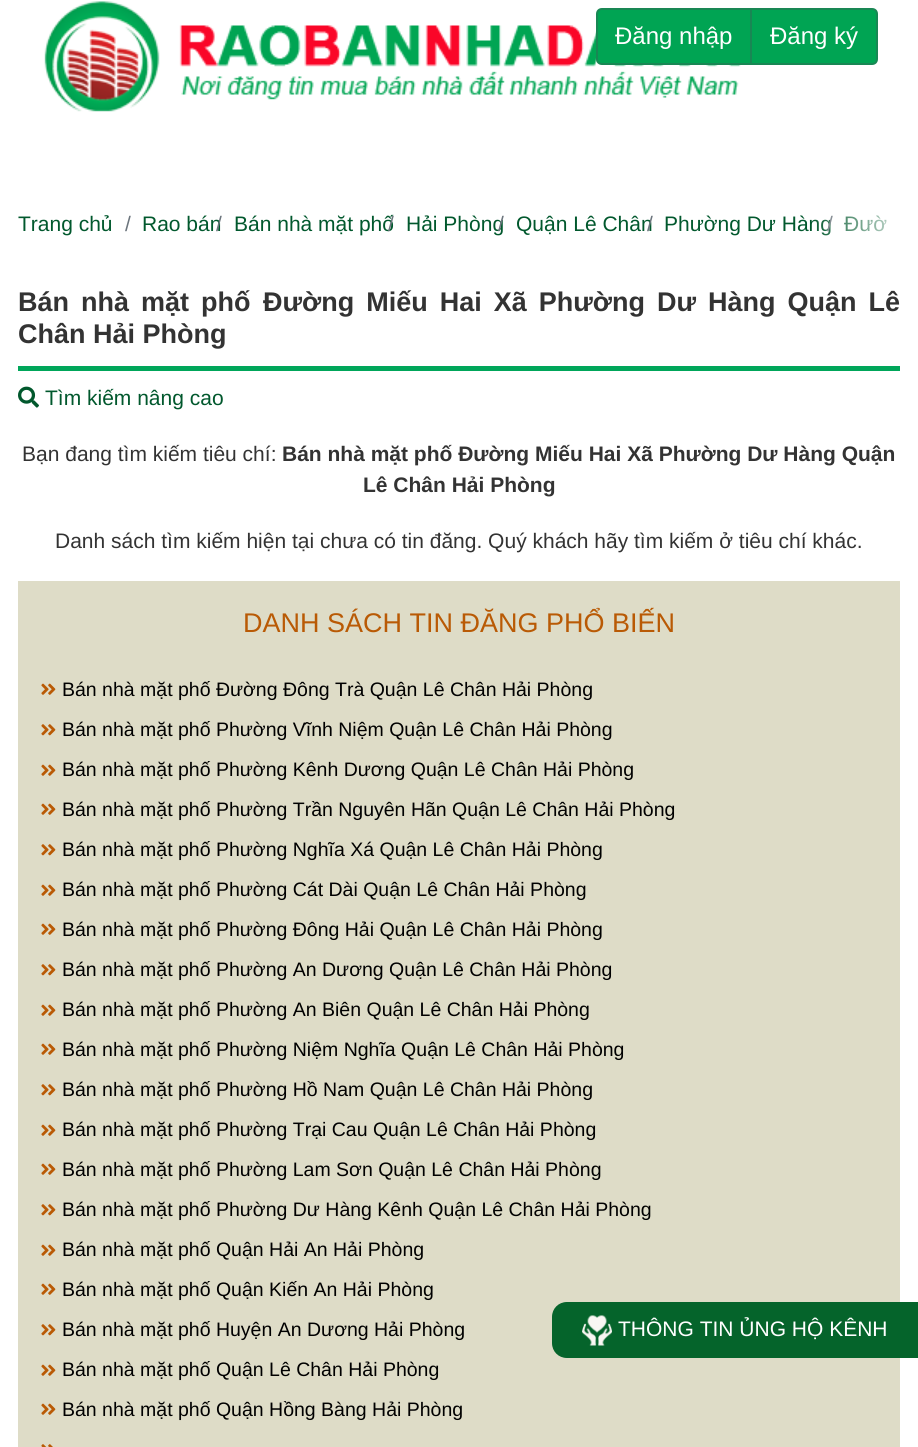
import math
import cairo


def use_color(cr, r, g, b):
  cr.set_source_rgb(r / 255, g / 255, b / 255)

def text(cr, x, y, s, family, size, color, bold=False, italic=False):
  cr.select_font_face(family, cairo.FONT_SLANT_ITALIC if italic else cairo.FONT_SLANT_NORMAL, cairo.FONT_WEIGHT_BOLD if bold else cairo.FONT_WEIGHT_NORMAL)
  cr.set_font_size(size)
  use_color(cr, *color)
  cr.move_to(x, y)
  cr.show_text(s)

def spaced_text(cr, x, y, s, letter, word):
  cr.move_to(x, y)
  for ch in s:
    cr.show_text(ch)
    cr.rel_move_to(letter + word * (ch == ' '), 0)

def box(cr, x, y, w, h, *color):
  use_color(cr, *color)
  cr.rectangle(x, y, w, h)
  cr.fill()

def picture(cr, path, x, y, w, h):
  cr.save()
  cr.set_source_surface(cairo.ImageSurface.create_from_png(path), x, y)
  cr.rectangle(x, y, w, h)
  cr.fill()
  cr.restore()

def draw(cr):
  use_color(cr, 255, 255, 255)
  cr.paint()
  picture(cr, "img_01.png", 44, 1, 697, 111)
  use_color(cr, 0, 164, 83)
  cr.new_path()
  cr.move_to(602, 9)
  cr.line_to(751, 9)
  cr.line_to(751, 64)
  cr.line_to(602, 64)
  cr.curve_to(599, 64, 597, 62, 597, 59)
  cr.line_to(597, 14)
  cr.curve_to(597, 11, 599, 9, 602, 9)
  cr.close_path()
  cr.fill_preserve()
  use_color(cr, 25, 135, 84)
  cr.stroke()
  use_color(cr, 0, 164, 83)
  cr.new_path()
  cr.move_to(751, 9)
  cr.line_to(872, 9)
  cr.curve_to(875, 9, 877, 11, 877, 14)
  cr.line_to(877, 59)
  cr.curve_to(877, 62, 875, 64, 872, 64)
  cr.line_to(751, 64)
  cr.close_path()
  cr.fill_preserve()
  use_color(cr, 25, 135, 84)
  cr.stroke()
  box(cr, 18, 366, 882, 5, 0, 166, 90)
  picture(cr, "img_02.png", 18, 386, 21, 22)
  box(cr, 18, 581, 882, 866, 222, 220, 199)
  picture(cr, "img_03.png", 41, 683, 15, 12)
  picture(cr, "img_04.png", 41, 724, 15, 12)
  picture(cr, "img_03.png", 41, 764, 15, 12)
  picture(cr, "img_03.png", 41, 803, 15, 12)
  picture(cr, "img_04.png", 41, 844, 15, 12)
  picture(cr, "img_03.png", 41, 884, 15, 12)
  picture(cr, "img_03.png", 41, 923, 15, 12)
  picture(cr, "img_04.png", 41, 964, 15, 12)
  picture(cr, "img_03.png", 41, 1004, 15, 12)
  picture(cr, "img_03.png", 41, 1043, 15, 12)
  picture(cr, "img_04.png", 41, 1084, 15, 12)
  picture(cr, "img_03.png", 41, 1124, 15, 12)
  picture(cr, "img_03.png", 41, 1163, 15, 12)
  picture(cr, "img_04.png", 41, 1204, 15, 12)
  picture(cr, "img_03.png", 41, 1244, 15, 12)
  picture(cr, "img_03.png", 41, 1283, 15, 12)
  picture(cr, "img_04.png", 41, 1324, 15, 12)
  picture(cr, "img_03.png", 41, 1364, 15, 12)
  picture(cr, "img_03.png", 41, 1403, 15, 12)
  picture(cr, "img_05.png", 41, 1444, 12, 3)
  use_color(cr, 5, 100, 43)
  cr.new_path()
  cr.move_to(567, 1302)
  cr.line_to(918, 1302)
  cr.line_to(918, 1358)
  cr.line_to(567, 1358)
  cr.curve_to(558.5, 1358, 552, 1351.5, 552, 1343)
  cr.line_to(552, 1317)
  cr.curve_to(552, 1308.5, 558.5, 1302, 567, 1302)
  cr.close_path()
  cr.fill()
  picture(cr, "img_06.png", 582, 1315, 30, 31)
  text(cr, 615, 44, "Đăng nhập", "Liberation Sans", 24, (255, 255, 255))
  text(cr, 770, 44, "Đăng ký", "Liberation Sans", 24, (255, 255, 255))
  text(cr, 18, 231, "Trang chủ", "Liberation Sans", 21, (1, 88, 45))
  text(cr, 125, 231, "/", "Liberation Sans", 21, (108, 117, 125))
  text(cr, 142, 231, "Rao bán", "Liberation Sans", 21, (1, 88, 45))
  text(cr, 216, 231, "/", "Liberation Sans", 21, (108, 117, 125))
  text(cr, 234, 231, "Bán nhà mặt phố", "Liberation Sans", 21, (1, 88, 45))
  text(cr, 388, 231, "/", "Liberation Sans", 21, (108, 117, 125))
  text(cr, 406, 231, "Hải Phòng", "Liberation Sans", 21, (1, 88, 45))
  text(cr, 498, 231, "/", "Liberation Sans", 21, (108, 117, 125))
  text(cr, 516, 231, "Quận Lê Chân", "Liberation Sans", 21, (1, 88, 45))
  text(cr, 647, 231, "/", "Liberation Sans", 21, (108, 117, 125))
  text(cr, 664, 231, "Phường Dư Hàng", "Liberation Sans", 21, (1, 88, 45))
  text(cr, 827, 231, "/", "Liberation Sans", 21, (108, 117, 125))
  text(cr, 844, 231, "Đườ", "Liberation Sans", 21, (1, 88, 45))
  gradient = cairo.LinearGradient(810, 236, 900, 236)
  gradient.add_color_stop_rgba(0, 1, 1, 1, 0)
  gradient.add_color_stop_rgba(1, 1, 1, 1, 0.8)
  cr.set_source(gradient)
  cr.rectangle(812, 215, 75, 21)
  cr.fill()
  cr.select_font_face("Liberation Sans", cairo.FONT_SLANT_NORMAL, cairo.FONT_WEIGHT_BOLD)
  cr.set_font_size(27)
  use_color(cr, 51, 51, 51)
  spaced_text(cr, 18, 311, "Bán nhà mặt phố", 0, 4.5)
  spaced_text(cr, 263, 311, "Đường Miếu Hai Xã Phường Dư Hàng Quận Lê", 0, 4.5)
  text(cr, 18, 343, "Chân Hải Phòng", "Liberation Sans", 27, (51, 51, 51), bold=True)
  text(cr, 45, 405, "Tìm kiếm nâng cao", "Liberation Sans", 21, (1, 88, 45))
  text(cr, 22, 461, "Bạn đang tìm kiếm tiêu chí:", "Liberation Sans", 21, (51, 51, 51))
  text(cr, 282, 461, "Bán nhà mặt phố Đường Miếu Hai Xã Phường Dư Hàng Quận", "Liberation Sans", 21, (51, 51, 51), bold=True)
  text(cr, 363, 492, "Lê Chân Hải Phòng", "Liberation Sans", 21, (51, 51, 51), bold=True)
  text(cr, 55, 548, "Danh sách tìm kiếm hiện tại chưa có tin đăng. Quý khách hãy tìm kiếm ở tiêu chí khác.", "Liberation Sans", 21, (51, 51, 51))
  text(cr, 243, 632, "DANH SÁCH TIN ĐĂNG PHỔ BIẾN", "Liberation Sans", 27, (185, 90, 5))
  text(cr, 62, 696, "Bán nhà mặt phố Đường Đông Trà Quận Lê Chân Hải Phòng", "Liberation Sans", 19.5, (0, 0, 0))
  text(cr, 62, 736, "Bán nhà mặt phố Phường Vĩnh Niệm Quận Lê Chân Hải Phòng", "Liberation Sans", 19.5, (0, 0, 0))
  text(cr, 62, 776, "Bán nhà mặt phố Phường Kênh Dương Quận Lê Chân Hải Phòng", "Liberation Sans", 19.5, (0, 0, 0))
  text(cr, 62, 816, "Bán nhà mặt phố Phường Trần Nguyên Hãn Quận Lê Chân Hải Phòng", "Liberation Sans", 19.5, (0, 0, 0))
  text(cr, 62, 856, "Bán nhà mặt phố Phường Nghĩa Xá Quận Lê Chân Hải Phòng", "Liberation Sans", 19.5, (0, 0, 0))
  text(cr, 62, 896, "Bán nhà mặt phố Phường Cát Dài Quận Lê Chân Hải Phòng", "Liberation Sans", 19.5, (0, 0, 0))
  text(cr, 62, 936, "Bán nhà mặt phố Phường Đông Hải Quận Lê Chân Hải Phòng", "Liberation Sans", 19.5, (0, 0, 0))
  text(cr, 62, 976, "Bán nhà mặt phố Phường An Dương Quận Lê Chân Hải Phòng", "Liberation Sans", 19.5, (0, 0, 0))
  text(cr, 62, 1016, "Bán nhà mặt phố Phường An Biên Quận Lê Chân Hải Phòng", "Liberation Sans", 19.5, (0, 0, 0))
  text(cr, 62, 1056, "Bán nhà mặt phố Phường Niệm Nghĩa Quận Lê Chân Hải Phòng", "Liberation Sans", 19.5, (0, 0, 0))
  text(cr, 62, 1096, "Bán nhà mặt phố Phường Hồ Nam Quận Lê Chân Hải Phòng", "Liberation Sans", 19.5, (0, 0, 0))
  text(cr, 62, 1136, "Bán nhà mặt phố Phường Trại Cau Quận Lê Chân Hải Phòng", "Liberation Sans", 19.5, (0, 0, 0))
  text(cr, 62, 1176, "Bán nhà mặt phố Phường Lam Sơn Quận Lê Chân Hải Phòng", "Liberation Sans", 19.5, (0, 0, 0))
  text(cr, 62, 1216, "Bán nhà mặt phố Phường Dư Hàng Kênh Quận Lê Chân Hải Phòng", "Liberation Sans", 19.5, (0, 0, 0))
  text(cr, 62, 1256, "Bán nhà mặt phố Quận Hải An Hải Phòng", "Liberation Sans", 19.5, (0, 0, 0))
  text(cr, 62, 1296, "Bán nhà mặt phố Quận Kiến An Hải Phòng", "Liberation Sans", 19.5, (0, 0, 0))
  text(cr, 62, 1336, "Bán nhà mặt phố Huyện An Dương Hải Phòng", "Liberation Sans", 19.5, (0, 0, 0))
  text(cr, 62, 1376, "Bán nhà mặt phố Quận Lê Chân Hải Phòng", "Liberation Sans", 19.5, (0, 0, 0))
  text(cr, 62, 1416, "Bán nhà mặt phố Quận Hồng Bàng Hải Phòng", "Liberation Sans", 19.5, (0, 0, 0))
  text(cr, 618, 1336, "THÔNG TIN ỦNG HỘ KÊNH", "Liberation Sans", 21, (255, 255, 255))


surface = cairo.ImageSurface(cairo.FORMAT_RGB24, 918, 1447)
cr = cairo.Context(surface)
options = cairo.FontOptions()
options.set_hint_metrics(cairo.HINT_METRICS_OFF)
options.set_hint_style(cairo.HINT_STYLE_NONE)
cr.set_font_options(options)
cr.set_miter_limit(4)
draw(cr)
surface.write_to_png("out.png")
